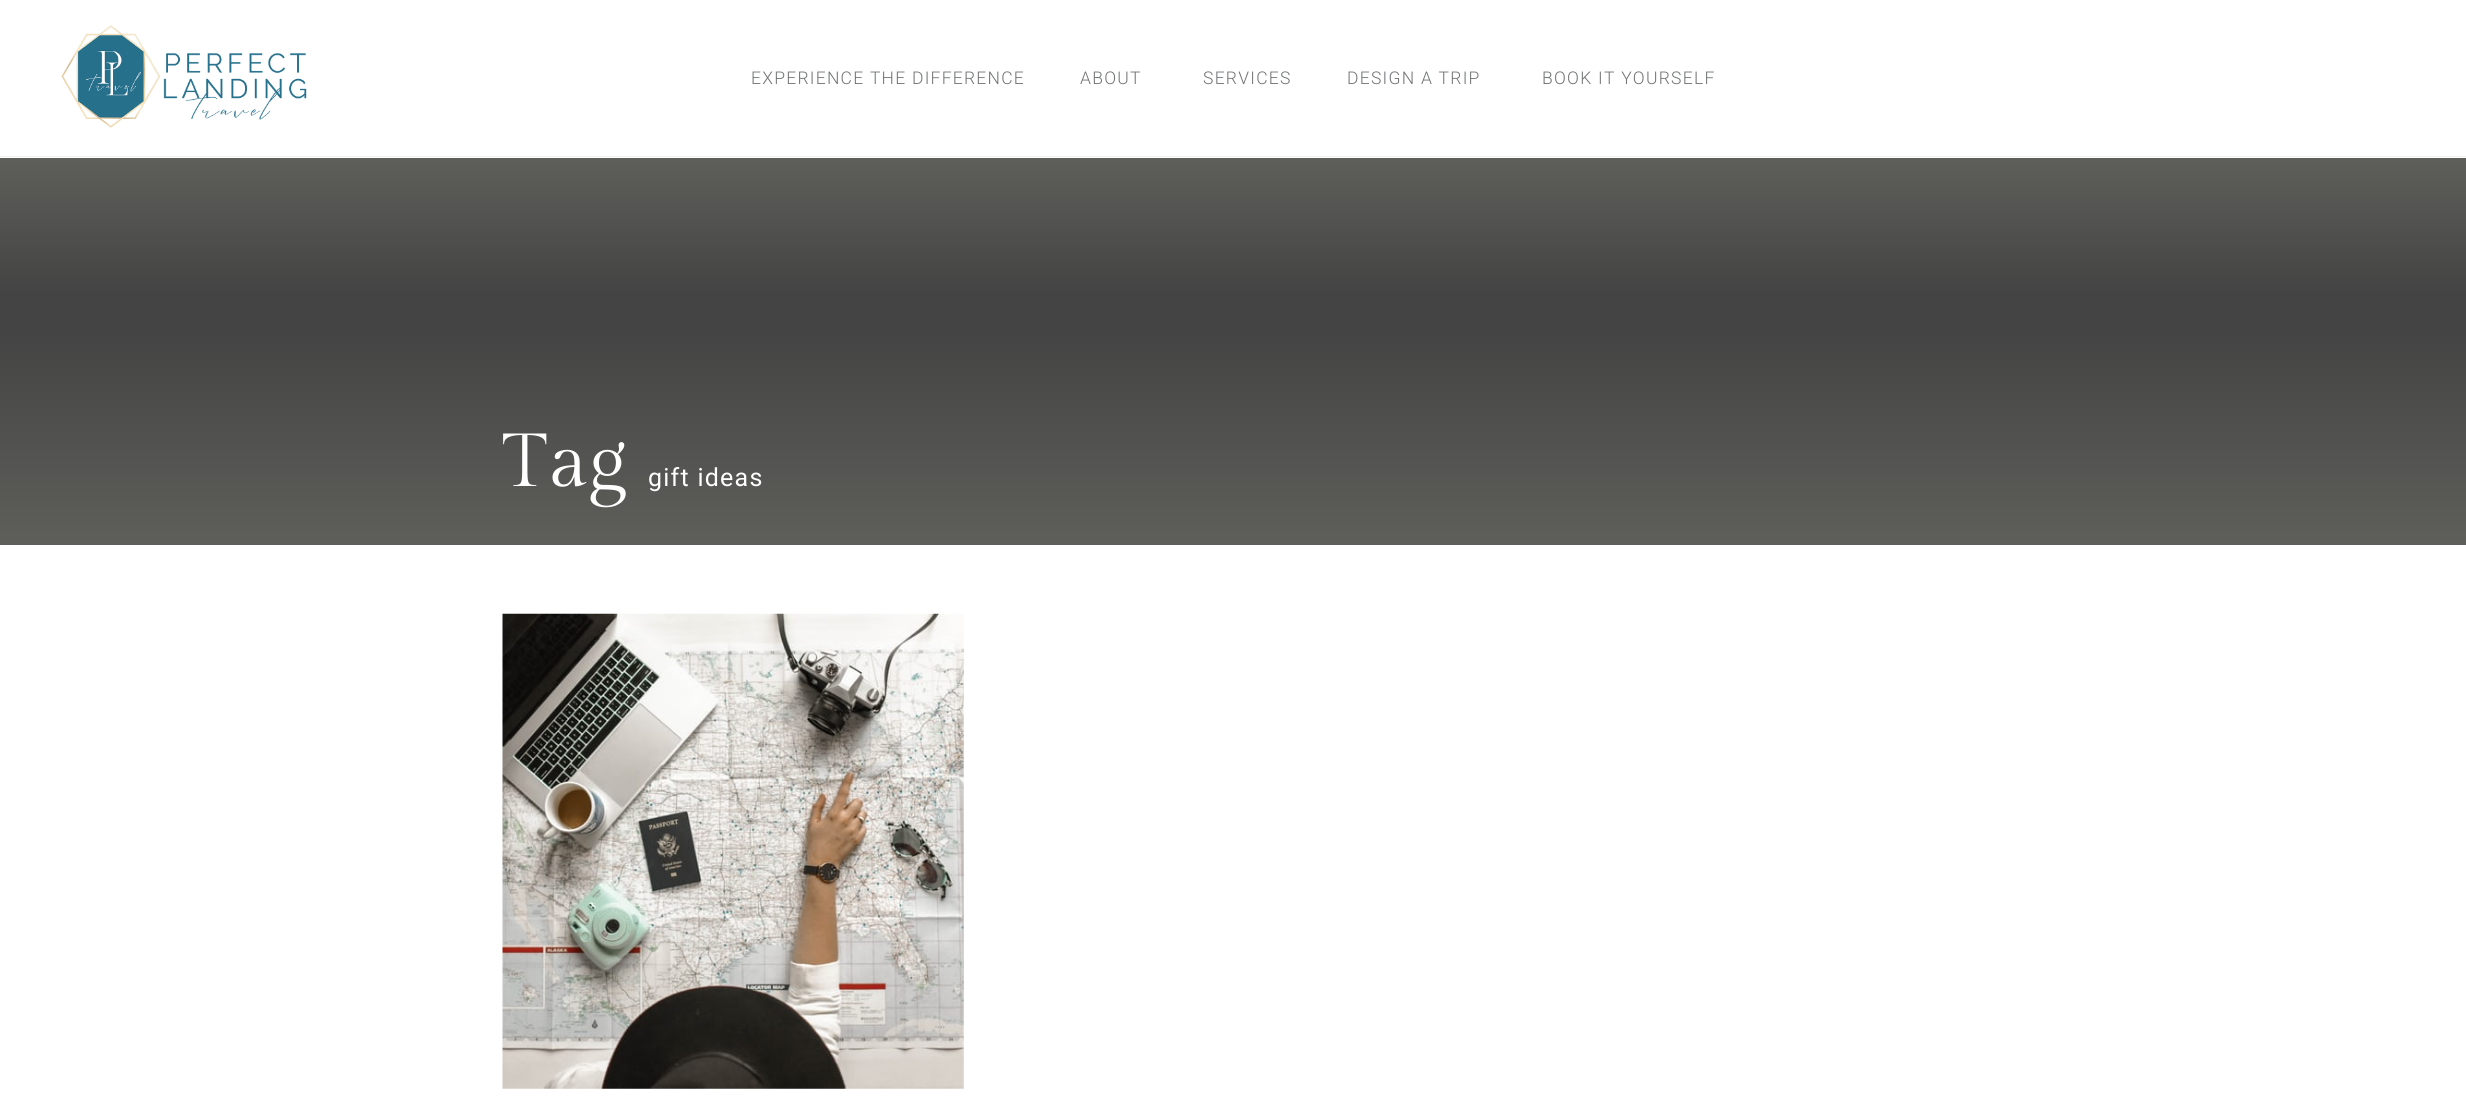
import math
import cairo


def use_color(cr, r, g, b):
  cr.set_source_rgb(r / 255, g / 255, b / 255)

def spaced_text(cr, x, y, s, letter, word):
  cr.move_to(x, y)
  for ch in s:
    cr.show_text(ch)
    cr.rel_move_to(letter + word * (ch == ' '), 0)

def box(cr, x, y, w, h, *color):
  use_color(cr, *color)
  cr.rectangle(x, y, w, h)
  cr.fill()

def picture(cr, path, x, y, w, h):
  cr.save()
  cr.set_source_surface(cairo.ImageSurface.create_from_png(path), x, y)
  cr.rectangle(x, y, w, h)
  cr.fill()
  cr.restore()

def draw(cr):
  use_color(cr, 255, 255, 255)
  cr.paint()
  box(cr, 0, 156, 2466, 1, 241, 241, 241)
  picture(cr, "img_01.png", 61, 25, 246, 103)
  gradient = cairo.LinearGradient(1233, 157, 1233, 545)
  gradient.add_color_stop_rgba(0, 0.369, 0.369, 0.353, 1)
  gradient.add_color_stop_rgba(0.35, 0.267, 0.267, 0.267, 1)
  gradient.add_color_stop_rgba(0.45, 0.267, 0.267, 0.267, 1)
  gradient.add_color_stop_rgba(1, 0.369, 0.369, 0.353, 1)
  cr.set_source(gradient)
  cr.rectangle(0, 158, 2466, 387)
  cr.fill()
  picture(cr, "img_02.png", 502, 613, 462, 476)
  cr.select_font_face("Roboto Light")
  cr.set_font_size(17.5)
  use_color(cr, 114, 116, 117)
  spaced_text(cr, 751, 84, "EXPERIENCE THE DIFFERENCE", 1.25, 0)
  spaced_text(cr, 1080, 84, "ABOUT", 1.25, 0)
  spaced_text(cr, 1203, 84, "SERVICES", 1.25, 0)
  spaced_text(cr, 1347, 84, "DESIGN A TRIP", 1.25, 0)
  spaced_text(cr, 1542, 84, "BOOK IT YOURSELF", 1.25, 0)
  cr.select_font_face("Gilda Display")
  cr.set_font_size(75)
  use_color(cr, 255, 255, 255)
  spaced_text(cr, 502, 486, "Tag", 1.25, 0)
  cr.select_font_face("Roboto")
  cr.set_font_size(25)
  spaced_text(cr, 648, 486, "gift ideas", 1.25, 0)


surface = cairo.ImageSurface(cairo.FORMAT_RGB24, 2466, 1097)
cr = cairo.Context(surface)
options = cairo.FontOptions()
options.set_hint_metrics(cairo.HINT_METRICS_OFF)
options.set_hint_style(cairo.HINT_STYLE_NONE)
cr.set_font_options(options)
cr.set_miter_limit(4)
draw(cr)
surface.write_to_png("out.png")
